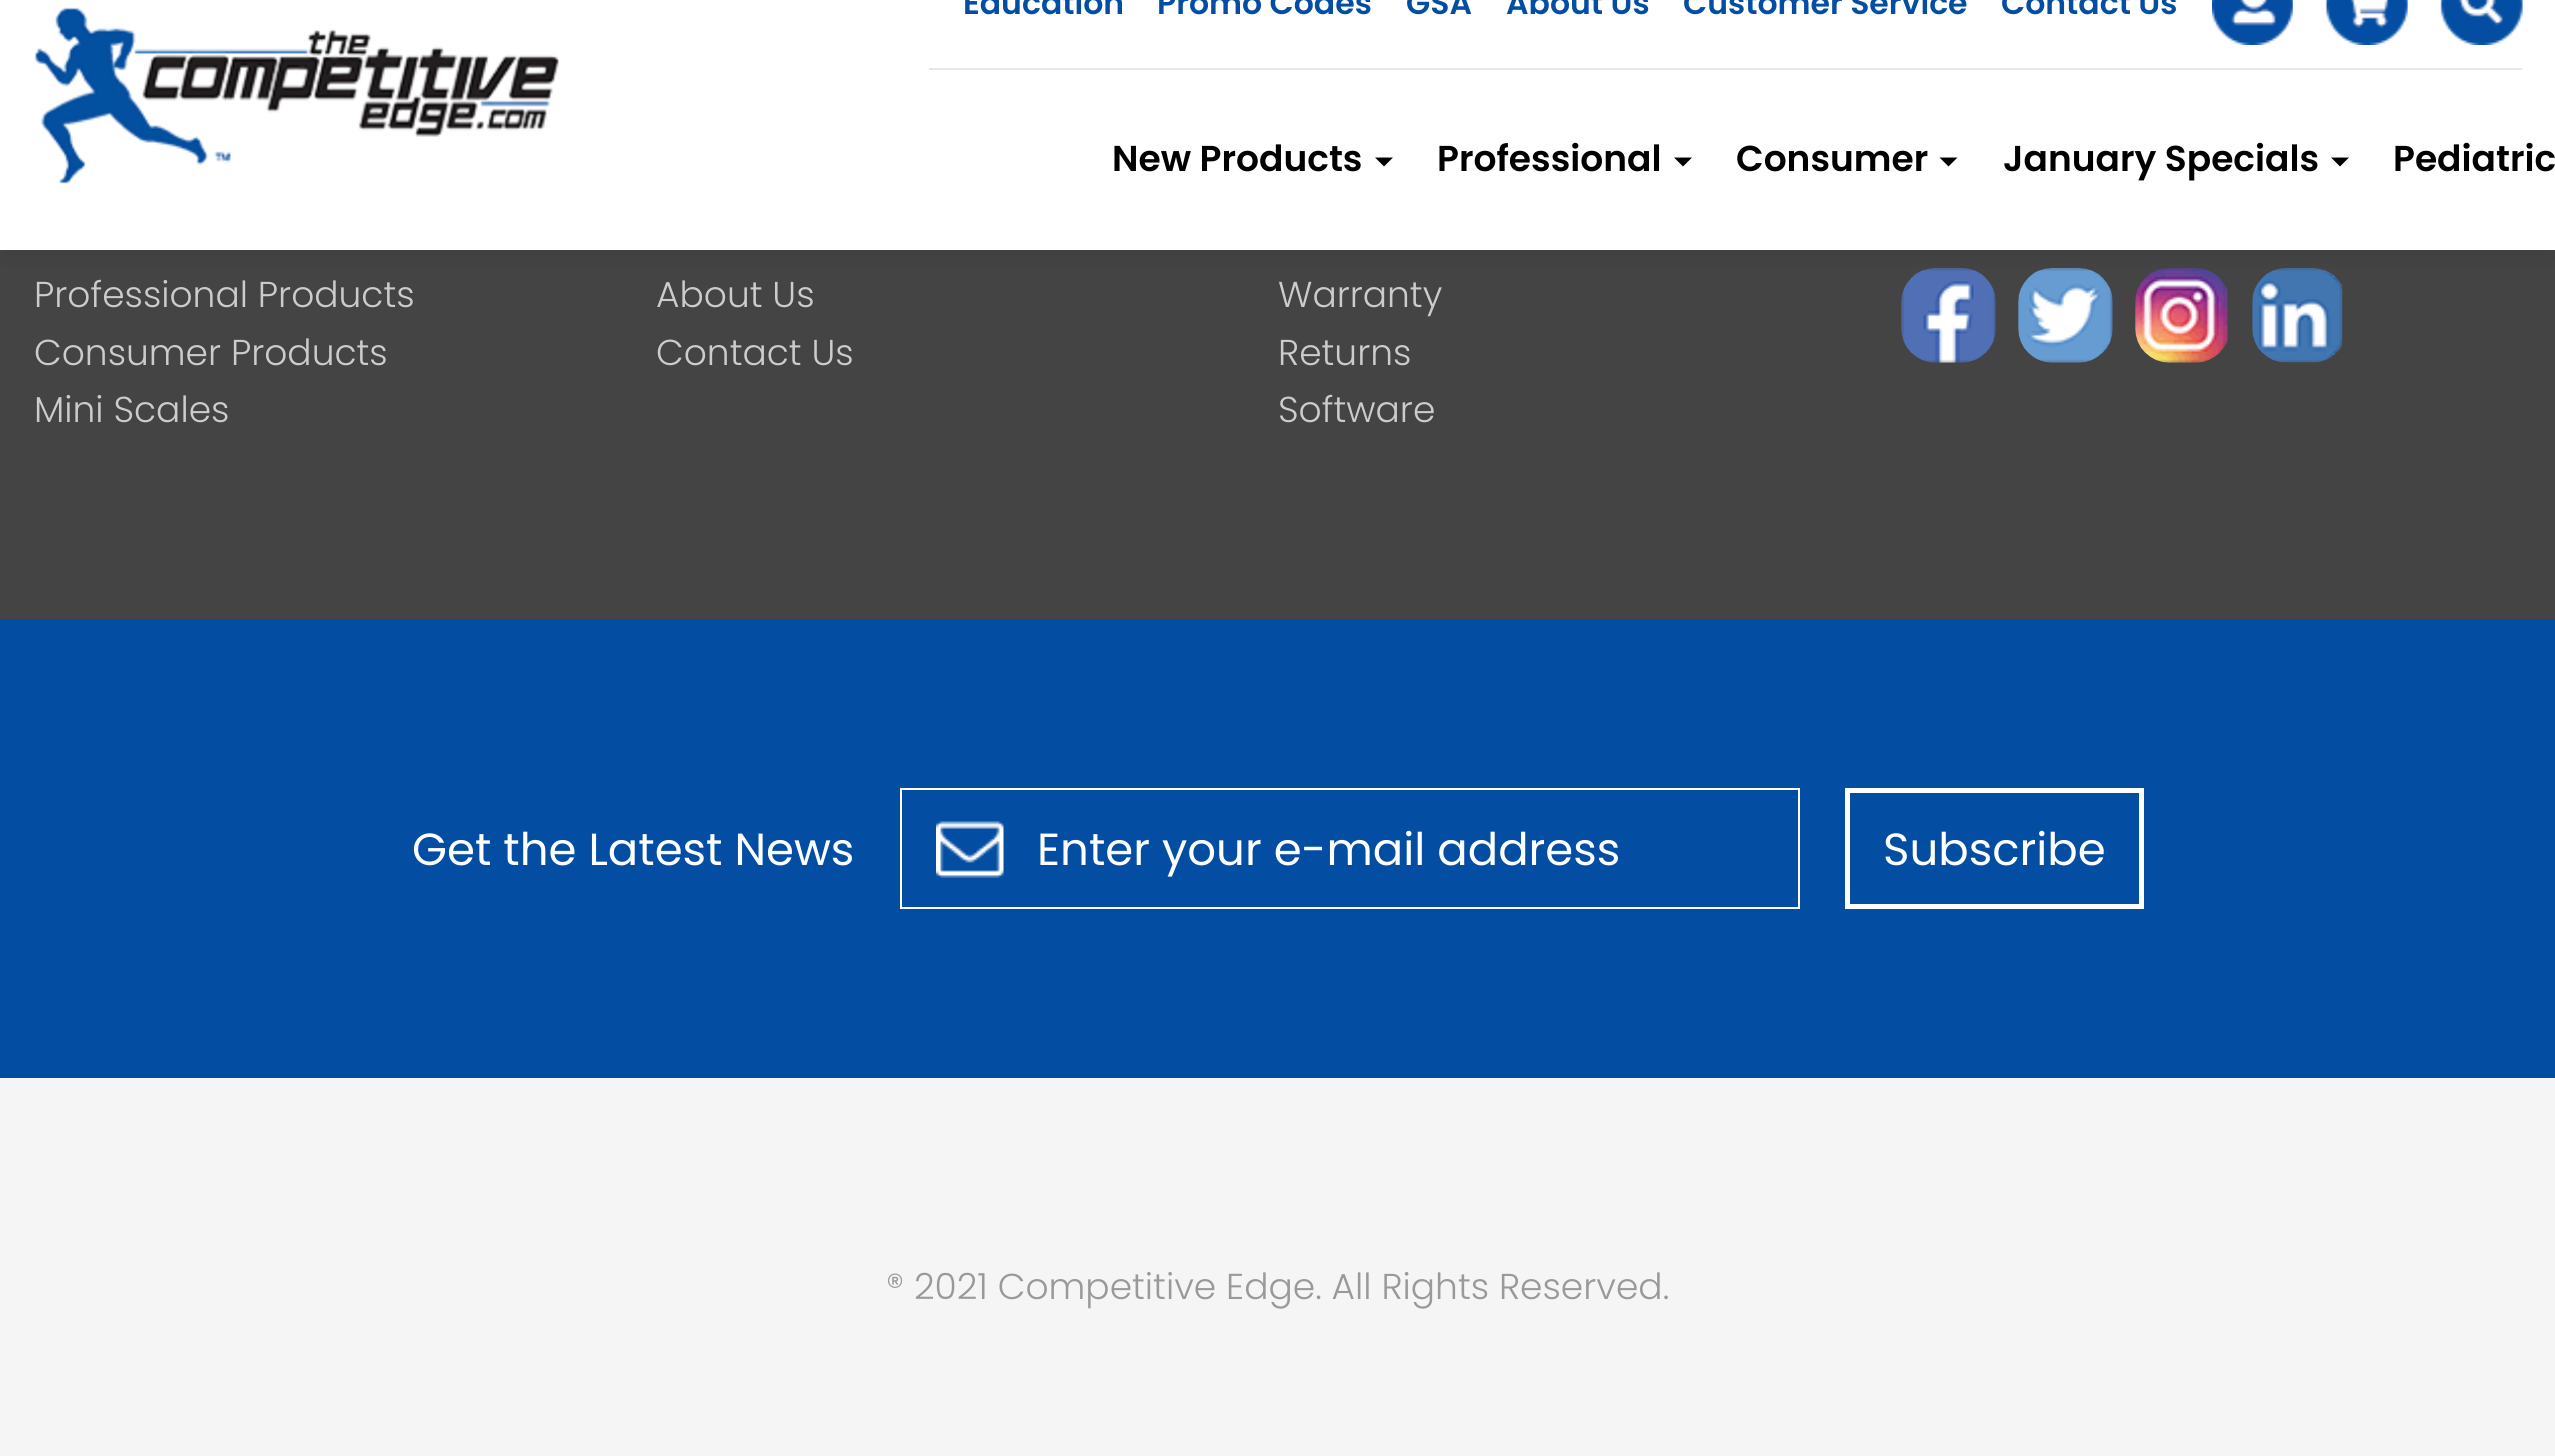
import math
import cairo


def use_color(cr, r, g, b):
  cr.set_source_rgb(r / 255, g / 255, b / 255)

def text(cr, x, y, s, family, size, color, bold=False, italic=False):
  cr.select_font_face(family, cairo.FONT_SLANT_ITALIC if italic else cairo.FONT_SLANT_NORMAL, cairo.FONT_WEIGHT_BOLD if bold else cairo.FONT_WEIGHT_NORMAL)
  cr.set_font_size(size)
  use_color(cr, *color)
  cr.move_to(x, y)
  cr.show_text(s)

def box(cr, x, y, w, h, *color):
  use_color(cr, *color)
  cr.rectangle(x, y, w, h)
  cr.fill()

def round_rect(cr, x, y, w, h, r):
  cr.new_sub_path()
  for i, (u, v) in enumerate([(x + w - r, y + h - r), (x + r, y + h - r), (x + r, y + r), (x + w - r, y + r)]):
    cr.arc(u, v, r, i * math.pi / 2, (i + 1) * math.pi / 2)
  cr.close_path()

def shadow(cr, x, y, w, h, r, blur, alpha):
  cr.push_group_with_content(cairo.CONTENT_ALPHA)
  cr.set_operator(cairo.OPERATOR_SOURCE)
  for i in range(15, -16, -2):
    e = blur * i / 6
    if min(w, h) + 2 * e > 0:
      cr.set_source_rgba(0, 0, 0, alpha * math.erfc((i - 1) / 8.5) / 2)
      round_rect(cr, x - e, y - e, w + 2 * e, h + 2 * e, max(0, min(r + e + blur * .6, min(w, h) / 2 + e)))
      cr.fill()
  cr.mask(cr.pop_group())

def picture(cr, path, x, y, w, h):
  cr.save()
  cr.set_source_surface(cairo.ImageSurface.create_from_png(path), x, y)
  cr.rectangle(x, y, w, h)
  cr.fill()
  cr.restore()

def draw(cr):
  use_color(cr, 245, 245, 245)
  cr.paint()
  box(cr, 0, 250, 2555, 369, 68, 68, 68)
  picture(cr, "img_05.png", 1901, 268, 95, 95)
  picture(cr, "img_06.png", 2018, 268, 95, 95)
  picture(cr, "img_07.png", 2135, 268, 94, 95)
  picture(cr, "img_08.png", 2252, 268, 91, 95)
  use_color(cr, 0, 0, 0)
  shadow(cr, 0, -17, 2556, 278, 0, 5.5, 0.05)
  box(cr, 0, 0, 2555, 250, 255, 255, 255)
  picture(cr, "img_01.png", 34, 7, 525, 177)
  box(cr, 929, 68, 1593, 2, 231, 231, 231)
  picture(cr, "img_02.png", 2212, 0, 81, 45)
  picture(cr, "img_03.png", 2325, 0, 83, 45)
  picture(cr, "img_04.png", 2440, 0, 83, 45)
  use_color(cr, 0, 0, 0)
  cr.new_path()
  cr.move_to(1375, 157.5)
  cr.line_to(1393, 157.5)
  cr.line_to(1384, 166.5)
  cr.close_path()
  cr.fill()
  cr.new_path()
  cr.move_to(1674, 157.5)
  cr.line_to(1692, 157.5)
  cr.line_to(1683, 166.5)
  cr.close_path()
  cr.fill()
  cr.new_path()
  cr.move_to(1939.5, 157.5)
  cr.line_to(1957.5, 157.5)
  cr.line_to(1948.5, 166.5)
  cr.close_path()
  cr.fill()
  cr.new_path()
  cr.move_to(2331, 157.5)
  cr.line_to(2349, 157.5)
  cr.line_to(2340, 166.5)
  cr.close_path()
  cr.fill()
  box(cr, 0, 619, 2555, 459, 3, 78, 162)
  picture(cr, "img_09.png", 936, 821, 68, 57)
  cr.rectangle(901, 789, 898, 119)
  use_color(cr, 255, 255, 255)
  cr.stroke()
  cr.rectangle(1847.5, 790.5, 294, 116)
  cr.set_line_width(5)
  cr.stroke()
  text(cr, 963, 14, "Education", "Poppins SemiBold", 31.5, (3, 78, 162))
  text(cr, 1157, 14, "Promo Codes", "Poppins SemiBold", 31.5, (3, 78, 162))
  text(cr, 1406, 14, "GSA", "Poppins SemiBold", 31.5, (3, 78, 162))
  text(cr, 1506, 14, "About Us", "Poppins SemiBold", 31.5, (3, 78, 162))
  text(cr, 1683, 14, "Customer Service", "Poppins SemiBold", 31.5, (3, 78, 162))
  text(cr, 2001, 14, "Contact Us", "Poppins SemiBold", 31.5, (3, 78, 162))
  text(cr, 1112, 171, "New Products", "Poppins SemiBold", 36, (0, 0, 0))
  text(cr, 1437, 171, "Professional", "Poppins SemiBold", 36, (0, 0, 0))
  text(cr, 1736, 171, "Consumer", "Poppins SemiBold", 36, (0, 0, 0))
  text(cr, 2003, 171, "January Specials", "Poppins SemiBold", 36, (0, 0, 0))
  text(cr, 2393, 171, "Pediatric", "Poppins SemiBold", 36, (0, 0, 0))
  text(cr, 34, 307, "Professional Products", "Poppins Light", 36, (204, 204, 204))
  text(cr, 34, 365, "Consumer Products", "Poppins Light", 36, (204, 204, 204))
  text(cr, 34, 422, "Mini Scales", "Poppins Light", 36, (204, 204, 204))
  text(cr, 656, 307, "About Us", "Poppins Light", 36, (204, 204, 204))
  text(cr, 656, 365, "Contact Us", "Poppins Light", 36, (204, 204, 204))
  text(cr, 1278, 307, "Warranty", "Poppins Light", 36, (204, 204, 204))
  text(cr, 1278, 365, "Returns", "Poppins Light", 36, (204, 204, 204))
  text(cr, 1278, 422, "Software", "Poppins Light", 36, (204, 204, 204))
  text(cr, 412, 865, "Get the Latest News", "Poppins", 45, (255, 255, 255))
  text(cr, 1037, 865, "Enter your e-mail address", "Poppins", 45, (255, 255, 255))
  text(cr, 1883, 865, "Subscribe", "Poppins", 45, (255, 255, 255))
  text(cr, 886, 1299, "® 2021 Competitive Edge. All Rights Reserved.", "Poppins Light", 36, (153, 153, 153))


surface = cairo.ImageSurface(cairo.FORMAT_RGB24, 2555, 1456)
cr = cairo.Context(surface)
options = cairo.FontOptions()
options.set_hint_metrics(cairo.HINT_METRICS_OFF)
options.set_hint_style(cairo.HINT_STYLE_NONE)
cr.set_font_options(options)
cr.set_miter_limit(4)
draw(cr)
surface.write_to_png("out.png")
